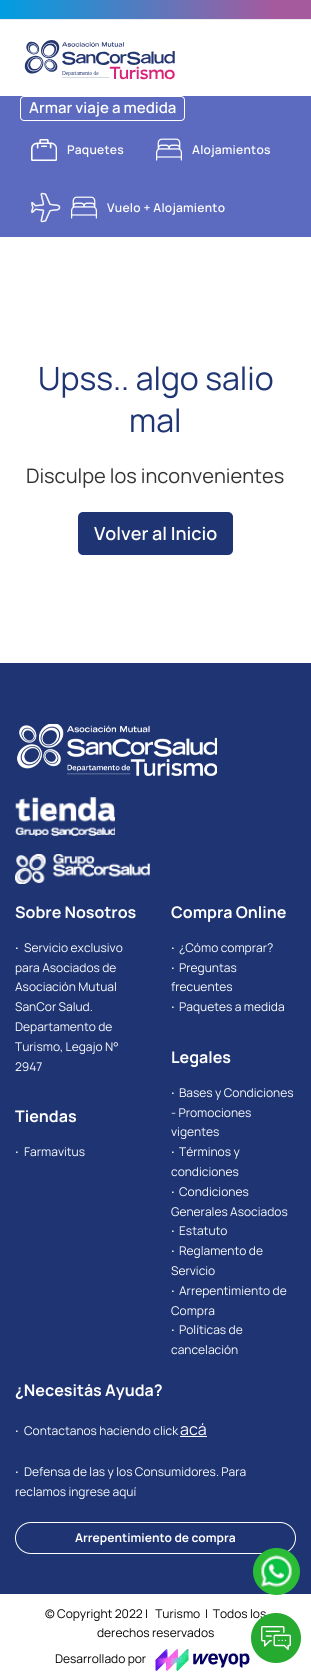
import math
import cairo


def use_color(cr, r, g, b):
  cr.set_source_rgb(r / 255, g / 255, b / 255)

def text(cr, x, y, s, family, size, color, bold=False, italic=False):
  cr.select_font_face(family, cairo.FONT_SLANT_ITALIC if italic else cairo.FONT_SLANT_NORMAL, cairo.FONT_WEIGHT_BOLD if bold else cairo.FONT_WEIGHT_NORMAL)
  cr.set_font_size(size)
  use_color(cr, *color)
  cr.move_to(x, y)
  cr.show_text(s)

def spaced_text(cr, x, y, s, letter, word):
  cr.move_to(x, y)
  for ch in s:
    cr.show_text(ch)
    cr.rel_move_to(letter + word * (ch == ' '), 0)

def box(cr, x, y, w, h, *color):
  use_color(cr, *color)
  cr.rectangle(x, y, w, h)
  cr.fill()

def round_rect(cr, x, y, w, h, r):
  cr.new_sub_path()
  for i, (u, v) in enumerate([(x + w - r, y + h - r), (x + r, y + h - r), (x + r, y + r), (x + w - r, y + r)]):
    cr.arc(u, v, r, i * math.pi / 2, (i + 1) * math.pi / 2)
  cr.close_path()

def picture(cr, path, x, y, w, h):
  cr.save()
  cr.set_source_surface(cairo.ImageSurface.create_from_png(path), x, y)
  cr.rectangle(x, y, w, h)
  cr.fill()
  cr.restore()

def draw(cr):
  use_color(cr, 255, 255, 255)
  cr.paint()
  gradient = cairo.LinearGradient(0, 4, 311, 4)
  gradient.add_color_stop_rgba(0, 0, 0.62, 0.886, 1)
  gradient.add_color_stop_rgba(0.88, 0.647, 0.353, 0.62, 1)
  cr.set_source(gradient)
  cr.rectangle(0, 0, 311, 19)
  cr.fill()
  box(cr, 0, 19, 311, 1, 237, 237, 237)
  picture(cr, "img_01.png", 24, 40, 151, 40)
  box(cr, 0, 96, 311, 141, 92, 107, 192)
  round_rect(cr, 20.5, 96.5, 164, 24, 3.5)
  use_color(cr, 255, 255, 255)
  cr.set_line_width(1)
  cr.stroke()
  picture(cr, "img_02.png", 31, 139, 26, 22)
  picture(cr, "img_03.png", 156, 138, 26, 23)
  picture(cr, "img_04.png", 31, 192, 30, 31)
  picture(cr, "img_03.png", 71, 196, 26, 23)
  use_color(cr, 30, 52, 115)
  round_rect(cr, 78, 512, 155, 43, 5)
  cr.fill()
  box(cr, 0, 663, 311, 931, 30, 52, 115)
  picture(cr, "img_05.png", 17, 724, 200, 52)
  picture(cr, "img_06.png", 15, 797, 100, 39)
  picture(cr, "img_07.png", 15, 854, 135, 30)
  box(cr, 180, 1436, 27, 1, 255, 255, 255)
  round_rect(cr, 15.5, 1522.5, 280, 31, 15.5)
  cr.stroke()
  use_color(cr, 42, 188, 53)
  cr.arc(276.5, 1571.5, 23.5, 0, 2 * math.pi)
  cr.fill()
  picture(cr, "img_08.png", 260, 1555, 33, 33)
  picture(cr, "img_09.png", 155, 1649, 95, 22)
  text(cr, 29, 113, "Armar viaje a medida", "Manrope SemiBold", 15, (255, 255, 255))
  cr.set_font_size(12)
  spaced_text(cr, 67, 154, "Paquetes", 0.25, 0)
  spaced_text(cr, 192, 154, "Alojamientos", 0.25, 0)
  spaced_text(cr, 107, 212, "Vuelo + Alojamiento", 0.25, 0)
  text(cr, 38, 390, "Upss.. algo salio", "Manrope", 32, (30, 52, 115))
  text(cr, 129, 432, "mal", "Manrope", 32, (30, 52, 115))
  text(cr, 26, 483, "Disculpe los inconvenientes", "Manrope", 20, (51, 51, 51))
  text(cr, 94, 540, "Volver al Inicio", "Manrope SemiBold", 18, (255, 255, 255))
  text(cr, 15, 918, "Sobre Nosotros", "Manrope", 16, (255, 255, 255), bold=True)
  text(cr, 15, 949, ".", "Manrope", 12, (255, 255, 255), bold=True)
  text(cr, 24, 952, "Servicio exclusivo", "Manrope", 12, (255, 255, 255))
  text(cr, 15, 972, "para Asociados de", "Manrope", 12, (255, 255, 255))
  text(cr, 15, 991, "Asociación Mutual", "Manrope", 12, (255, 255, 255))
  text(cr, 15, 1011, "SanCor Salud.", "Manrope", 12, (255, 255, 255))
  text(cr, 15, 1031, "Departamento de", "Manrope", 12, (255, 255, 255))
  text(cr, 15, 1051, "Turismo, Legajo N°", "Manrope", 12, (255, 255, 255))
  text(cr, 15, 1071, "2947", "Manrope", 12, (255, 255, 255))
  text(cr, 15, 1122, "Tiendas", "Manrope", 16, (255, 255, 255), bold=True)
  text(cr, 15, 1153, ".", "Manrope", 12, (255, 255, 255), bold=True)
  text(cr, 24, 1156, "Farmavitus", "Manrope", 12, (255, 255, 255))
  text(cr, 171, 918, "Compra Online", "Manrope", 16, (255, 255, 255), bold=True)
  text(cr, 171, 949, ".", "Manrope", 12, (255, 255, 255), bold=True)
  text(cr, 179, 952, "¿Cómo comprar?", "Manrope", 12, (255, 255, 255))
  text(cr, 171, 969, ".", "Manrope", 12, (255, 255, 255), bold=True)
  text(cr, 179, 972, "Preguntas", "Manrope", 12, (255, 255, 255))
  text(cr, 171, 991, "frecuentes", "Manrope", 12, (255, 255, 255))
  text(cr, 171, 1008, ".", "Manrope", 12, (255, 255, 255), bold=True)
  text(cr, 179, 1011, "Paquetes a medida", "Manrope", 12, (255, 255, 255))
  text(cr, 171, 1063, "Legales", "Manrope", 16, (255, 255, 255), bold=True)
  text(cr, 171, 1094, ".", "Manrope", 12, (255, 255, 255), bold=True)
  text(cr, 179, 1097, "Bases y Condiciones", "Manrope", 12, (255, 255, 255))
  text(cr, 171, 1117, "- Promociones", "Manrope", 12, (255, 255, 255))
  text(cr, 171, 1136, "vigentes", "Manrope", 12, (255, 255, 255))
  text(cr, 171, 1153, ".", "Manrope", 12, (255, 255, 255), bold=True)
  text(cr, 179, 1156, "Términos y", "Manrope", 12, (255, 255, 255))
  text(cr, 171, 1176, "condiciones", "Manrope", 12, (255, 255, 255))
  text(cr, 171, 1193, ".", "Manrope", 12, (255, 255, 255), bold=True)
  text(cr, 179, 1196, "Condiciones", "Manrope", 12, (255, 255, 255))
  text(cr, 171, 1216, "Generales Asociados", "Manrope", 12, (255, 255, 255))
  text(cr, 171, 1232, ".", "Manrope", 12, (255, 255, 255), bold=True)
  text(cr, 179, 1235, "Estatuto", "Manrope", 12, (255, 255, 255))
  text(cr, 171, 1252, ".", "Manrope", 12, (255, 255, 255), bold=True)
  text(cr, 179, 1255, "Reglamento de", "Manrope", 12, (255, 255, 255))
  text(cr, 171, 1275, "Servicio", "Manrope", 12, (255, 255, 255))
  text(cr, 171, 1292, ".", "Manrope", 12, (255, 255, 255), bold=True)
  text(cr, 179, 1295, "Arrepentimiento de", "Manrope", 12, (255, 255, 255))
  text(cr, 171, 1315, "Compra", "Manrope", 12, (255, 255, 255))
  text(cr, 171, 1331, ".", "Manrope", 12, (255, 255, 255), bold=True)
  text(cr, 179, 1334, "Políticas de", "Manrope", 12, (255, 255, 255))
  text(cr, 171, 1354, "cancelación", "Manrope", 12, (255, 255, 255))
  text(cr, 15, 1396, "¿Necesitás Ayuda?", "Manrope", 16, (255, 255, 255), bold=True)
  text(cr, 15, 1432, ".", "Manrope", 12, (255, 255, 255), bold=True)
  text(cr, 24, 1435, "Contactanos haciendo click", "Manrope", 12, (255, 255, 255))
  text(cr, 180, 1435, "acá", "Manrope", 16, (255, 255, 255))
  text(cr, 15, 1473, ".", "Manrope", 12, (255, 255, 255), bold=True)
  text(cr, 24, 1476, "Defensa de las y los Consumidores. Para", "Manrope", 12, (255, 255, 255))
  text(cr, 15, 1496, "reclamos ingrese aquí", "Manrope", 12, (255, 255, 255))
  text(cr, 75, 1542, "Arrepentimiento de compra", "Manrope", 12, (255, 255, 255), bold=True)
  text(cr, 45, 1618, "© Copyright 2022 |   Turismo  |  Todos los", "Manrope", 12, (1, 1, 1))
  text(cr, 97, 1637, "derechos reservados", "Manrope", 12, (1, 1, 1))
  text(cr, 55, 1663, "Desarrollado por", "Manrope", 12, (1, 1, 1))
  use_color(cr, 42, 188, 53)
  cr.new_path()
  cr.arc(276, 1638, 25, 0, 2 * math.pi)
  cr.fill()
  cr.set_source_rgba(0, 0, 0, 0.1)
  cr.arc(276, 1638, 25, 0, 2 * math.pi)
  cr.fill()
  picture(cr, "img_10.png", 261, 1626, 30, 24)


surface = cairo.ImageSurface(cairo.FORMAT_RGB24, 311, 1673)
cr = cairo.Context(surface)
options = cairo.FontOptions()
options.set_hint_metrics(cairo.HINT_METRICS_OFF)
options.set_hint_style(cairo.HINT_STYLE_NONE)
cr.set_font_options(options)
cr.set_miter_limit(4)
draw(cr)
surface.write_to_png("out.png")
